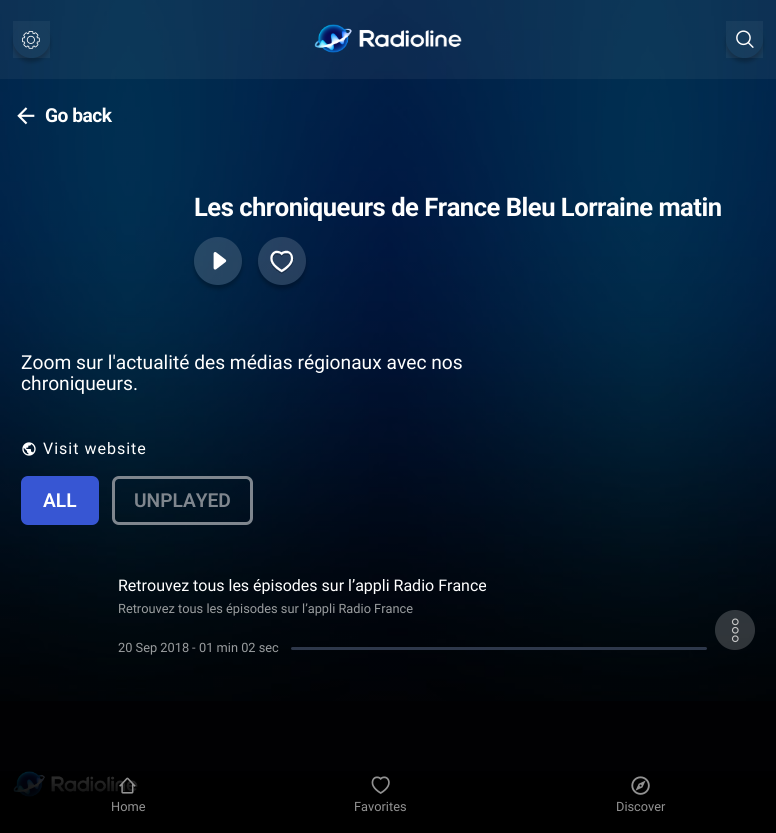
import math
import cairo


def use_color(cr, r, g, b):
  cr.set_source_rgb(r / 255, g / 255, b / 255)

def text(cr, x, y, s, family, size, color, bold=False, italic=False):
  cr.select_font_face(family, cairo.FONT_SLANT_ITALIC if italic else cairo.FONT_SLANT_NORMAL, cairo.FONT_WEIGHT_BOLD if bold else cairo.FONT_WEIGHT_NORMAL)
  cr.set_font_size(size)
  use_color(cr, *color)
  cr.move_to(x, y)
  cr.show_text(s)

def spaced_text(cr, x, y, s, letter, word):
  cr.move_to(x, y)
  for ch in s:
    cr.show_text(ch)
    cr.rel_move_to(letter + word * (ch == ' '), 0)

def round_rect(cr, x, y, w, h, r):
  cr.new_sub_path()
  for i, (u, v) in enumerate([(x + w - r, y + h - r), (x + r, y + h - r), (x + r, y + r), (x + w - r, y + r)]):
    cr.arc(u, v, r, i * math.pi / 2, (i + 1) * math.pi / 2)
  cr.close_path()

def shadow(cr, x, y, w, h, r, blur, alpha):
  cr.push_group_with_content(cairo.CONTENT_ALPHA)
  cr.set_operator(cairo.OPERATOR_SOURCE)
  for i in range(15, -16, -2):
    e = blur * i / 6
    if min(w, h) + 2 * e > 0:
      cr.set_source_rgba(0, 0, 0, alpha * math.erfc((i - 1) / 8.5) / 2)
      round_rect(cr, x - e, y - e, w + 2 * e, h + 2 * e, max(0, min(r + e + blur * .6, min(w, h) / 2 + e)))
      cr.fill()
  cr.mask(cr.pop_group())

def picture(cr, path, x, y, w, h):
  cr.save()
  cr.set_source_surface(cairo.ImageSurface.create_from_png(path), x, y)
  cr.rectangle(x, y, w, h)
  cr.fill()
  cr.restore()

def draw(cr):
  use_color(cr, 1, 1, 3)
  cr.paint()
  picture(cr, "img_01.png", 0, 0, 776, 701)
  cr.set_source_rgba(1, 1, 1, 0.05)
  cr.rectangle(0, 0, 776, 79)
  cr.fill()
  cr.save()
  cr.set_fill_rule(cairo.FILL_RULE_EVEN_ODD)
  cr.new_path()
  cr.move_to(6, 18)
  cr.line_to(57, 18)
  cr.line_to(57, 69)
  cr.line_to(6, 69)
  cr.close_path()
  cr.move_to(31.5, 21)
  cr.curve_to(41.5, 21, 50, 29.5, 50, 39.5)
  cr.curve_to(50, 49.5, 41.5, 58, 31.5, 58)
  cr.curve_to(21.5, 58, 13, 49.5, 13, 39.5)
  cr.curve_to(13, 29.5, 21.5, 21, 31.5, 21)
  cr.close_path()
  cr.clip()
  use_color(cr, 0, 0, 0)
  shadow(cr, 13, 25, 37, 37, 18.5, 2, 0.25)
  cr.restore()
  cr.rectangle(13, 21, 37, 37)
  cr.fill()
  picture(cr, "img_02.png", 22, 31, 18, 18)
  picture(cr, "img_03.png", 314, 24, 148, 29)
  cr.save()
  cr.set_fill_rule(cairo.FILL_RULE_EVEN_ODD)
  cr.new_path()
  cr.move_to(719, 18)
  cr.line_to(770, 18)
  cr.line_to(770, 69)
  cr.line_to(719, 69)
  cr.close_path()
  cr.move_to(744.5, 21)
  cr.curve_to(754.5, 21, 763, 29.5, 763, 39.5)
  cr.curve_to(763, 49.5, 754.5, 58, 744.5, 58)
  cr.curve_to(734.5, 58, 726, 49.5, 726, 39.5)
  cr.curve_to(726, 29.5, 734.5, 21, 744.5, 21)
  cr.close_path()
  cr.clip()
  use_color(cr, 0, 0, 0)
  shadow(cr, 726, 25, 37, 37, 18.5, 2, 0.25)
  cr.restore()
  cr.rectangle(726, 21, 37, 37)
  cr.fill()
  picture(cr, "img_04.png", 736, 30, 18, 18)
  picture(cr, "img_05.png", 17, 107, 18, 18)
  cr.save()
  cr.set_fill_rule(cairo.FILL_RULE_EVEN_ODD)
  cr.new_path()
  cr.move_to(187, 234)
  cr.line_to(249, 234)
  cr.line_to(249, 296)
  cr.line_to(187, 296)
  cr.close_path()
  cr.move_to(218, 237)
  cr.curve_to(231.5, 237, 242, 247.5, 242, 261)
  cr.curve_to(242, 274.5, 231.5, 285, 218, 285)
  cr.curve_to(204.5, 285, 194, 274.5, 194, 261)
  cr.curve_to(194, 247.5, 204.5, 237, 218, 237)
  cr.close_path()
  cr.clip()
  use_color(cr, 0, 0, 0)
  shadow(cr, 194, 241, 48, 48, 24, 2, 0.25)
  cr.restore()
  cr.set_source_rgba(1, 1, 1, 0.15)
  cr.arc(218, 261, 24, 0, 2 * math.pi)
  cr.fill()
  picture(cr, "img_06.png", 213, 252, 14, 18)
  cr.save()
  cr.set_fill_rule(cairo.FILL_RULE_EVEN_ODD)
  cr.new_path()
  cr.move_to(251, 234)
  cr.line_to(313, 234)
  cr.line_to(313, 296)
  cr.line_to(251, 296)
  cr.close_path()
  cr.move_to(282, 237)
  cr.curve_to(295.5, 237, 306, 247.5, 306, 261)
  cr.curve_to(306, 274.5, 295.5, 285, 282, 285)
  cr.curve_to(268.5, 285, 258, 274.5, 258, 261)
  cr.curve_to(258, 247.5, 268.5, 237, 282, 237)
  cr.close_path()
  cr.clip()
  use_color(cr, 0, 0, 0)
  shadow(cr, 258, 241, 48, 48, 24, 2, 0.25)
  cr.restore()
  cr.arc(282, 261, 24, 0, 2 * math.pi)
  cr.fill()
  picture(cr, "img_07.png", 270, 250, 24, 24)
  picture(cr, "img_08.png", 22, 442, 14, 14)
  use_color(cr, 55, 86, 211)
  round_rect(cr, 22.5, 477.5, 75, 46, 5.5)
  cr.fill_preserve()
  cr.set_line_width(3)
  cr.stroke()
  round_rect(cr, 113.5, 477.5, 138, 46, 5.5)
  use_color(cr, 127, 134, 142)
  cr.stroke()
  use_color(cr, 46, 56, 75)
  round_rect(cr, 291, 647, 416, 3, 1.5)
  cr.fill()
  picture(cr, "img_09.png", 715, 610, 40, 40)
  picture(cr, "img_10.png", 13, 771, 125, 26)
  gradient = cairo.LinearGradient(388, 721, 388, 833)
  gradient.add_color_stop_rgba(0, 0, 0, 0, 0)
  gradient.add_color_stop_rgba(0.03, 0, 0, 0, 0.01)
  gradient.add_color_stop_rgba(0.06, 0, 0, 0, 0.05)
  gradient.add_color_stop_rgba(0.09, 0, 0, 0, 0.11)
  gradient.add_color_stop_rgba(0.12, 0, 0, 0, 0.18)
  gradient.add_color_stop_rgba(0.15, 0, 0, 0, 0.26)
  gradient.add_color_stop_rgba(0.19, 0, 0, 0, 0.35)
  gradient.add_color_stop_rgba(0.23, 0, 0, 0, 0.45)
  gradient.add_color_stop_rgba(0.28, 0, 0, 0, 0.55)
  gradient.add_color_stop_rgba(0.34, 0, 0, 0, 0.65)
  gradient.add_color_stop_rgba(0.41, 0, 0, 0, 0.74)
  gradient.add_color_stop_rgba(0.49, 0, 0, 0, 0.82)
  gradient.add_color_stop_rgba(0.59, 0, 0, 0, 0.89)
  gradient.add_color_stop_rgba(0.71, 0, 0, 0, 0.95)
  gradient.add_color_stop_rgba(0.84, 0, 0, 0, 0.99)
  gradient.add_color_stop_rgba(1, 0, 0, 0, 1)
  cr.set_source(gradient)
  cr.rectangle(0, 771, 776, 62)
  cr.fill()
  picture(cr, "img_11.png", 119, 777, 17, 17)
  picture(cr, "img_12.png", 371, 776, 19, 18)
  picture(cr, "img_13.png", 631, 776, 19, 19)
  cr.select_font_face("Roboto", cairo.FONT_SLANT_NORMAL, cairo.FONT_WEIGHT_BOLD)
  cr.set_font_size(19.2)
  use_color(cr, 255, 255, 255)
  spaced_text(cr, 45, 122, "Go back", -0.5, 0)
  cr.save()
  cr.rectangle(194, 193, 527, 28)
  cr.clip()
  cr.set_font_size(25.6)
  spaced_text(cr, 194, 216, "Les chroniqueurs de France Bleu Lorraine matin", -0.5, 0)
  cr.restore()
  text(cr, 21, 369, "Zoom sur l'actualité des médias régionaux avec nos", "Roboto", 19.2, (255, 255, 255))
  text(cr, 21, 390, "chroniqueurs.", "Roboto", 19.2, (255, 255, 255))
  cr.set_font_size(16)
  spaced_text(cr, 43, 454, "Visit website", 1, 0)
  text(cr, 43, 507, "ALL", "Roboto SemiBold", 19.2, (255, 255, 255))
  text(cr, 134, 507, "UNPLAYED", "Roboto SemiBold", 19.2, (127, 134, 142))
  cr.save()
  cr.rectangle(118, 574, 589, 20)
  cr.clip()
  text(cr, 118, 591, "Retrouvez tous les épisodes sur l’appli Radio France", "Roboto", 16, (255, 255, 255))
  cr.restore()
  text(cr, 118, 613, "Retrouvez tous les épisodes sur l’appli Radio France", "Roboto", 12.8, (153, 156, 158))
  text(cr, 118, 652, "20 Sep 2018", "Roboto", 12.8, (153, 156, 158))
  text(cr, 192, 652, "-", "Roboto", 12.8, (153, 156, 158))
  text(cr, 199, 652, "01 min 02 sec", "Roboto", 12.8, (153, 156, 158))
  text(cr, 111, 811, "Home", "Roboto", 12.8, (146, 146, 146))
  text(cr, 354, 811, "Favorites", "Roboto", 12.8, (146, 146, 146))
  text(cr, 616, 811, "Discover", "Roboto", 12.8, (146, 146, 146))


surface = cairo.ImageSurface(cairo.FORMAT_RGB24, 776, 833)
cr = cairo.Context(surface)
options = cairo.FontOptions()
options.set_hint_metrics(cairo.HINT_METRICS_OFF)
options.set_hint_style(cairo.HINT_STYLE_NONE)
cr.set_font_options(options)
cr.set_miter_limit(4)
draw(cr)
surface.write_to_png("out.png")
